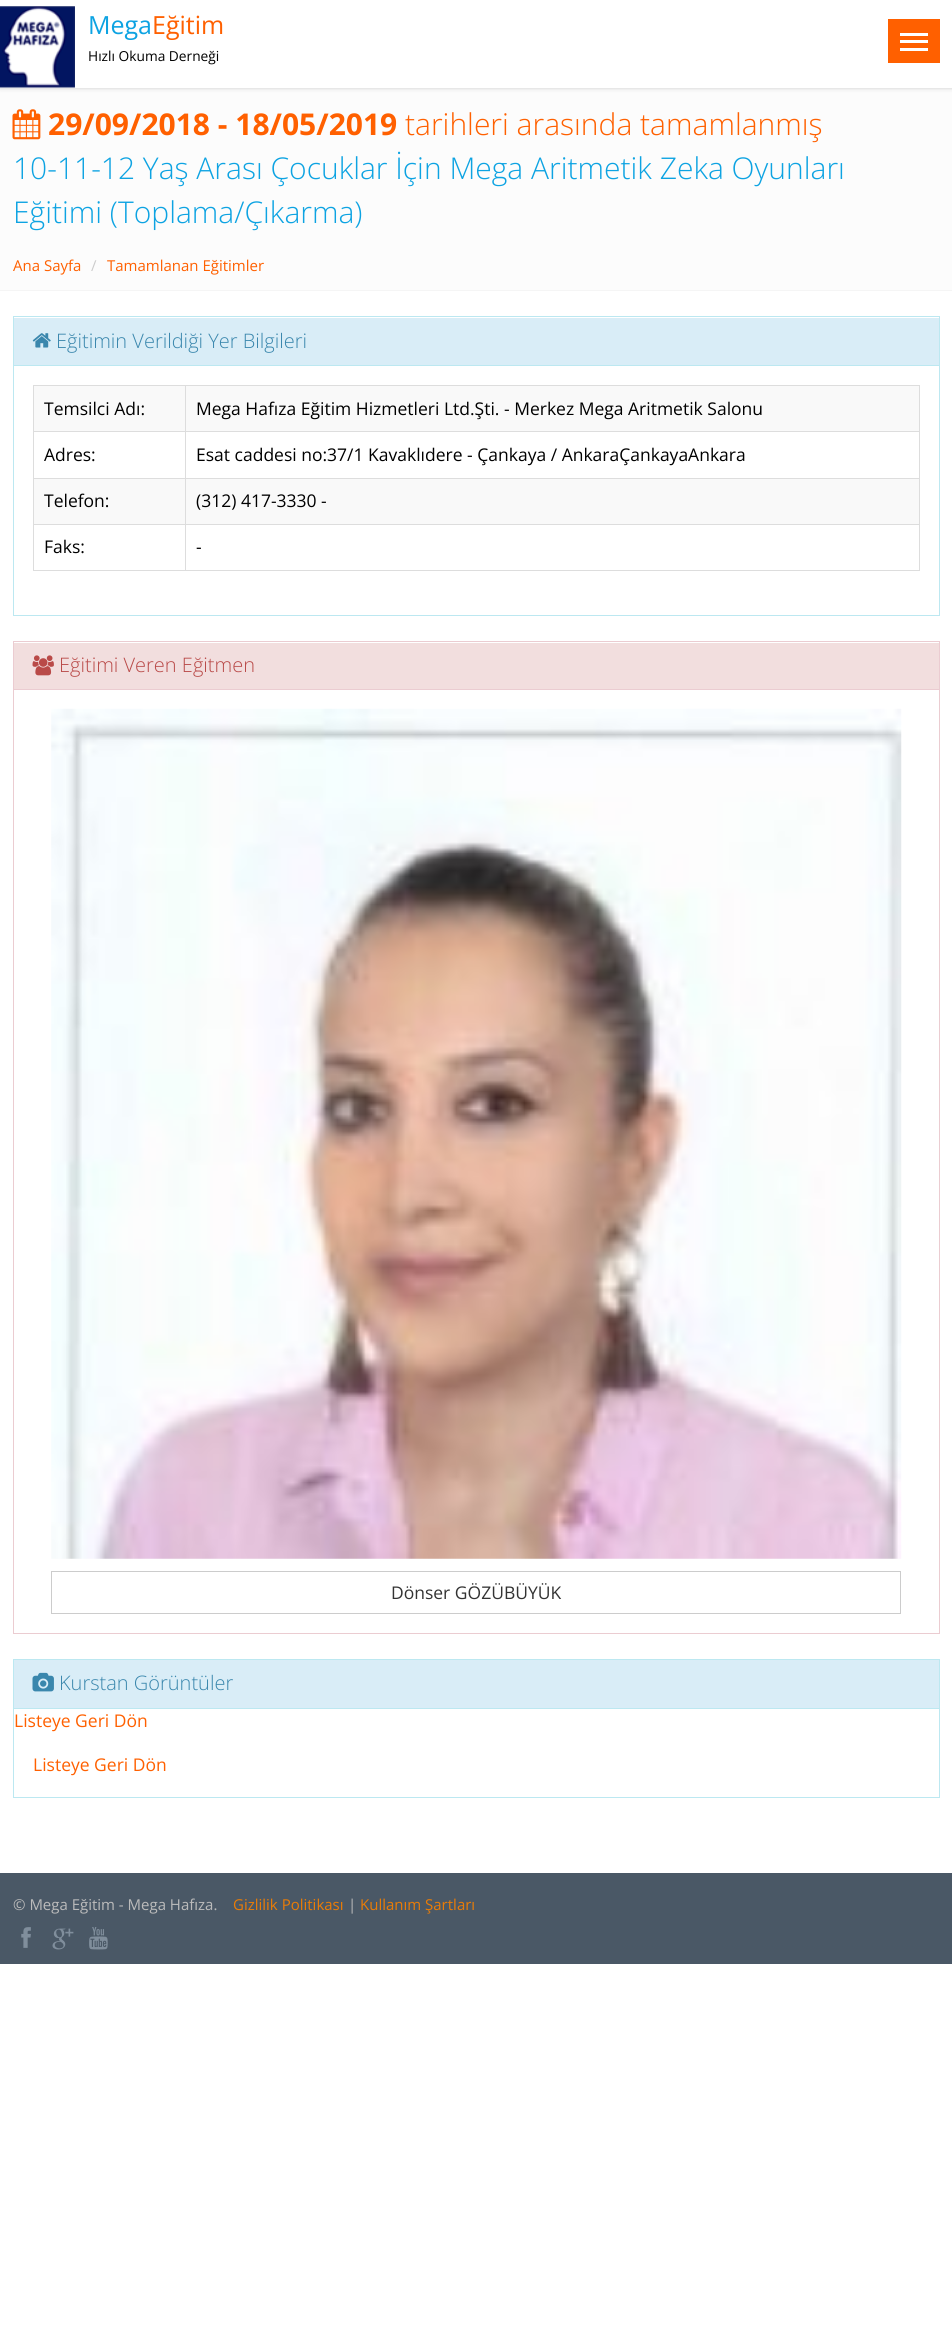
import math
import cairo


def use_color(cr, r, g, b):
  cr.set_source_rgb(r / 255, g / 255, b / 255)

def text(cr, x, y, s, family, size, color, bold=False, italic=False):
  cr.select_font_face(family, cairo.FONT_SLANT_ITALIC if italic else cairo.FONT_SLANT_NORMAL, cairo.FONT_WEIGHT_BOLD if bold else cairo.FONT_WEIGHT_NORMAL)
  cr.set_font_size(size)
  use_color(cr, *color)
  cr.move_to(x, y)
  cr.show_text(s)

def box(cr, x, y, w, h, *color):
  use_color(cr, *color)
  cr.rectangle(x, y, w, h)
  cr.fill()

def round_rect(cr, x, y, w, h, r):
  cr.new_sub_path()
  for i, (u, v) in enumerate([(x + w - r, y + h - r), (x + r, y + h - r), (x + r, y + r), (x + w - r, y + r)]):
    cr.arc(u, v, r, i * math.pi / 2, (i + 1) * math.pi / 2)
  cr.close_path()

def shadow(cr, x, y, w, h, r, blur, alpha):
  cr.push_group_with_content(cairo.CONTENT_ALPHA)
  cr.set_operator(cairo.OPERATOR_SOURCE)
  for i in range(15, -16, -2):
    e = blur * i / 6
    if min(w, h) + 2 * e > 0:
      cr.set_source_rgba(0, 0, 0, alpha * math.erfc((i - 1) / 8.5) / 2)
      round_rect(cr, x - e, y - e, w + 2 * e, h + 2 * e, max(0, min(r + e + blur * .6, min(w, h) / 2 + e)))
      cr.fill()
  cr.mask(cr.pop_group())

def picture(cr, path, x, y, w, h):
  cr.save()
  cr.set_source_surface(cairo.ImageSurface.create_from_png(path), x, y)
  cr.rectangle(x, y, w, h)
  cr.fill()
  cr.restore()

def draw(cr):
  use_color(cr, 255, 255, 255)
  cr.paint()
  box(cr, 0, 89, 952, 201, 252, 252, 252)
  box(cr, 0, 88, 952, 1, 245, 245, 245)
  use_color(cr, 221, 221, 221)
  shadow(cr, 0, 1, 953, 88, 0, 2, 1)
  box(cr, 0, 0, 952, 88, 255, 255, 255)
  picture(cr, "img_01.png", 0, 6, 75, 82)
  box(cr, 888, 19, 52, 44, 255, 96, 0)
  box(cr, 900, 33, 28, 3, 255, 255, 255)
  box(cr, 900, 40, 28, 3, 255, 255, 255)
  box(cr, 900, 48, 28, 3, 255, 255, 255)
  box(cr, 0, 290, 952, 1, 245, 245, 245)
  picture(cr, "img_02.png", 12, 109, 29, 31)
  cr.rectangle(13.5, 316.5, 926, 299)
  use_color(cr, 188, 232, 241)
  cr.set_line_width(1)
  cr.stroke()
  box(cr, 14, 318, 925, 47, 217, 237, 247)
  box(cr, 14, 365, 925, 1, 188, 232, 241)
  picture(cr, "img_03.png", 32, 333, 19, 15)
  box(cr, 33, 385, 887, 1, 221, 221, 221)
  box(cr, 919, 385, 1, 186, 221, 221, 221)
  box(cr, 33, 570, 887, 1, 221, 221, 221)
  box(cr, 33, 385, 1, 186, 221, 221, 221)
  box(cr, 34, 386, 151, 45, 249, 249, 249)
  box(cr, 186, 386, 733, 45, 249, 249, 249)
  box(cr, 185, 431, 735, 1, 221, 221, 221)
  box(cr, 185, 478, 735, 1, 221, 221, 221)
  box(cr, 185, 524, 735, 1, 221, 221, 221)
  box(cr, 185, 524, 1, 47, 221, 221, 221)
  box(cr, 33, 524, 153, 1, 221, 221, 221)
  box(cr, 185, 478, 1, 47, 221, 221, 221)
  box(cr, 33, 478, 153, 1, 221, 221, 221)
  box(cr, 185, 431, 1, 48, 221, 221, 221)
  box(cr, 33, 431, 153, 1, 221, 221, 221)
  box(cr, 185, 385, 1, 48, 221, 221, 221)
  box(cr, 34, 479, 151, 45, 249, 249, 249)
  box(cr, 186, 479, 733, 45, 249, 249, 249)
  cr.rectangle(13.5, 641.5, 926, 992)
  use_color(cr, 235, 204, 209)
  cr.stroke()
  box(cr, 14, 643, 925, 46, 242, 222, 222)
  box(cr, 14, 689, 925, 1, 235, 204, 209)
  picture(cr, "img_04.png", 32, 655, 22, 21)
  picture(cr, "img_05.png", 51, 708, 851, 851)
  cr.rectangle(51.5, 1571.5, 849, 42)
  use_color(cr, 204, 204, 204)
  cr.stroke()
  cr.rectangle(13.5, 1659.5, 926, 138)
  use_color(cr, 188, 232, 241)
  cr.stroke()
  box(cr, 14, 1660, 925, 48, 217, 237, 247)
  box(cr, 14, 1708, 925, 1, 188, 232, 241)
  picture(cr, "img_06.png", 32, 1672, 22, 20)
  box(cr, 0, 1873, 952, 91, 74, 88, 102)
  picture(cr, "img_07.png", 21, 1927, 10, 21)
  picture(cr, "img_08.png", 52, 1928, 22, 22)
  picture(cr, "img_09.png", 89, 1927, 19, 23)
  text(cr, 88, 34, "Mega", "Open Sans", 25, (13, 163, 226))
  text(cr, 152, 34, "Eğitim", "Open Sans", 25, (255, 96, 0))
  text(cr, 88, 61, "Hızlı Okuma Derneği", "Open Sans", 13.75, (0, 0, 0))
  text(cr, 48, 135, "29/09/2018 - 18/05/2019", "Open Sans", 30, (255, 96, 0), bold=True)
  text(cr, 405, 135, "tarihleri arasında tamamlanmış", "Open Sans Light", 30, (255, 96, 0))
  text(cr, 13, 179, "10-11-12 Yaş Arası Çocuklar İçin Mega Aritmetik Zeka Oyunları", "Open Sans Light", 30, (13, 163, 226))
  text(cr, 13, 223, "Eğitimi (Toplama/Çıkarma)", "Open Sans Light", 30, (13, 163, 226))
  text(cr, 13, 271, "Ana Sayfa", "Open Sans", 15, (255, 96, 0))
  text(cr, 91, 271, "/", "Open Sans", 15, (204, 204, 204))
  text(cr, 107, 271, "Tamamlanan Eğitimler", "Open Sans", 15, (255, 96, 0))
  text(cr, 56, 348, "Eğitimin Verildiği Yer Bilgileri", "Open Sans Light", 20, (58, 135, 173))
  text(cr, 44, 415, "Temsilci Adı:", "Open Sans", 17.5, (0, 0, 0))
  text(cr, 196, 415, "Mega Hafıza Eğitim Hizmetleri Ltd.Şti. - Merkez Mega Aritmetik Salonu", "Open Sans", 17.5, (0, 0, 0))
  text(cr, 44, 461, "Adres:", "Open Sans", 17.5, (0, 0, 0))
  text(cr, 196, 461, "Esat caddesi no:37/1 Kavaklıdere - Çankaya / AnkaraÇankayaAnkara", "Open Sans", 17.5, (0, 0, 0))
  text(cr, 44, 507, "Telefon:", "Open Sans", 17.5, (0, 0, 0))
  text(cr, 196, 507, "(312) 417-3330 -", "Open Sans", 17.5, (0, 0, 0))
  text(cr, 44, 553, "Faks:", "Open Sans", 17.5, (0, 0, 0))
  text(cr, 196, 553, "-", "Open Sans", 17.5, (0, 0, 0))
  text(cr, 59, 672, "Eğitimi Veren Eğitmen", "Open Sans Light", 20, (185, 74, 72))
  text(cr, 391, 1599, "Dönser GÖZÜBÜYÜK", "Open Sans", 17.5, (51, 51, 51))
  text(cr, 59, 1690, "Kurstan Görüntüler", "Open Sans Light", 20, (58, 135, 173))
  text(cr, 14, 1727, "Listeye Geri Dön", "Open Sans", 17.5, (255, 96, 0))
  text(cr, 33, 1771, "Listeye Geri Dön", "Open Sans", 17.5, (255, 96, 0))
  text(cr, 13, 1910, "© Mega Eğitim - Mega Hafıza.", "Open Sans", 15, (187, 187, 187))
  text(cr, 233, 1910, "Gizlilik Politikası", "Open Sans", 15, (234, 124, 6))
  text(cr, 348, 1910, "|", "Open Sans", 15, (187, 187, 187))
  text(cr, 360, 1910, "Kullanım Şartları", "Open Sans", 15, (234, 124, 6))


surface = cairo.ImageSurface(cairo.FORMAT_RGB24, 952, 2335)
cr = cairo.Context(surface)
options = cairo.FontOptions()
options.set_hint_metrics(cairo.HINT_METRICS_OFF)
options.set_hint_style(cairo.HINT_STYLE_NONE)
cr.set_font_options(options)
cr.set_miter_limit(4)
draw(cr)
surface.write_to_png("out.png")
